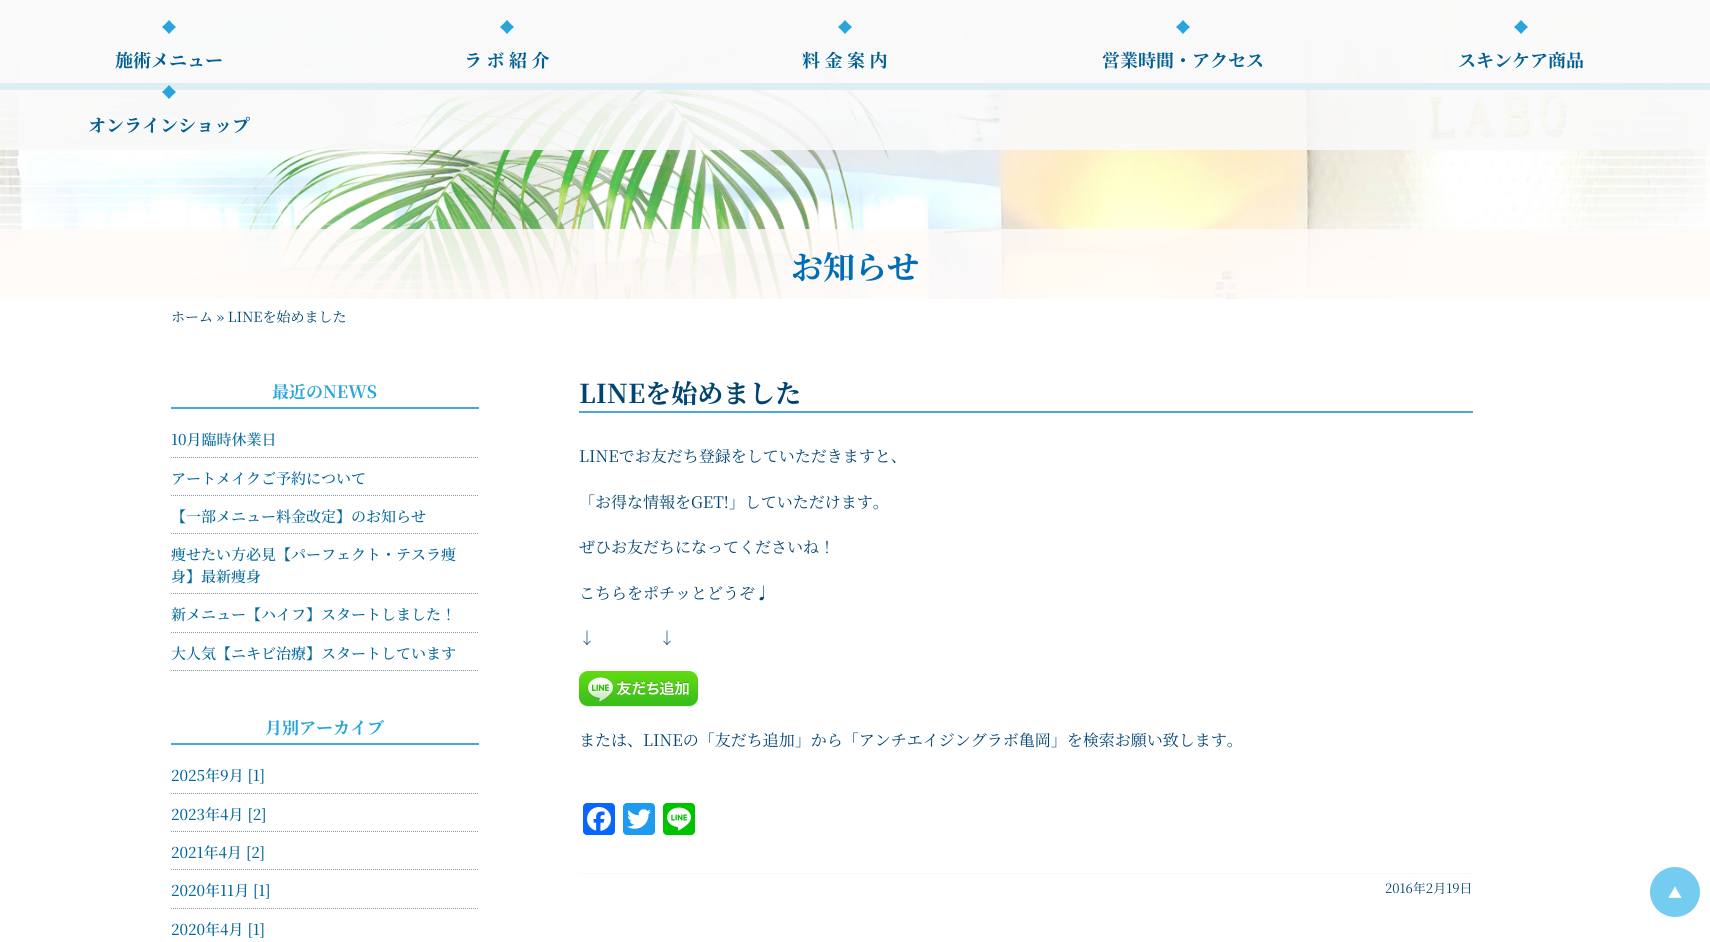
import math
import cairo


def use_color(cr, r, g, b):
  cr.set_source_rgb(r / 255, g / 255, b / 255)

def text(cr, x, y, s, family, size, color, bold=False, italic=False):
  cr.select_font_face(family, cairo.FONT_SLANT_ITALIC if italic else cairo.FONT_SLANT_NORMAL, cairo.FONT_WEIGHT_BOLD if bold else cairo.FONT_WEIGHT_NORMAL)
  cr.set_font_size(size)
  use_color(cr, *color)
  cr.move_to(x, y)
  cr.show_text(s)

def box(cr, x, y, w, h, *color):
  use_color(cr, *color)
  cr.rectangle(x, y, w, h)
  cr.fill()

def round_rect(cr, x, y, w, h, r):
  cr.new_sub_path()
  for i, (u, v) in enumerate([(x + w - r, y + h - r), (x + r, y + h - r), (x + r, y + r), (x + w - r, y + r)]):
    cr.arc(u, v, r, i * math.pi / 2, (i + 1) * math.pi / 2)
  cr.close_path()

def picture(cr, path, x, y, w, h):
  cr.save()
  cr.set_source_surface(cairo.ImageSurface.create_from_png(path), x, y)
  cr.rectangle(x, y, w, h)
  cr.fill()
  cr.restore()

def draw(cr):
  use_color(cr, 255, 255, 255)
  cr.paint()
  picture(cr, "img_06.png", 0, 0, 1710, 299)
  cr.set_source_rgba(0.98, 0.98, 0.98, 0.85)
  cr.rectangle(0, 0, 1710, 83)
  cr.fill()
  box(cr, 0, 83, 1710, 7, 6, 154, 206)
  cr.set_source_rgba(0.98, 0.98, 0.98, 0.88)
  cr.rectangle(0, 0, 1710, 150)
  cr.fill()
  picture(cr, "img_01.png", 162, 20, 14, 14)
  picture(cr, "img_02.png", 500, 20, 14, 14)
  picture(cr, "img_03.png", 838, 20, 14, 14)
  picture(cr, "img_04.png", 1176, 20, 14, 14)
  picture(cr, "img_01.png", 1514, 20, 14, 14)
  picture(cr, "img_05.png", 162, 85, 14, 14)
  cr.set_source_rgba(1, 0.98, 0.969, 0.8)
  cr.rectangle(0, 229, 1710, 70)
  cr.fill()
  box(cr, 171, 407, 308, 2, 74, 168, 221)
  cr.new_path()
  cr.move_to(171, 457.5)
  cr.line_to(479, 457.5)
  use_color(cr, 137, 156, 163)
  cr.set_line_width(1)
  cr.set_dash([1, 1])
  cr.stroke()
  cr.new_path()
  cr.move_to(171, 495.5)
  cr.line_to(479, 495.5)
  cr.stroke()
  cr.new_path()
  cr.move_to(171, 533.5)
  cr.line_to(479, 533.5)
  cr.stroke()
  cr.new_path()
  cr.move_to(171, 593.5)
  cr.line_to(479, 593.5)
  cr.stroke()
  cr.new_path()
  cr.move_to(171, 632.5)
  cr.line_to(479, 632.5)
  cr.stroke()
  cr.new_path()
  cr.move_to(171, 670.5)
  cr.line_to(479, 670.5)
  cr.stroke()
  box(cr, 171, 743, 308, 2, 74, 168, 221)
  cr.new_path()
  cr.move_to(171, 793.5)
  cr.line_to(479, 793.5)
  use_color(cr, 137, 156, 163)
  cr.stroke()
  cr.new_path()
  cr.move_to(171, 831.5)
  cr.line_to(479, 831.5)
  cr.stroke()
  cr.new_path()
  cr.move_to(171, 869.5)
  cr.line_to(479, 869.5)
  cr.stroke()
  cr.new_path()
  cr.move_to(171, 908.5)
  cr.line_to(479, 908.5)
  cr.stroke()
  box(cr, 579, 411, 894, 2, 74, 168, 221)
  picture(cr, "img_07.png", 579, 671, 119, 36)
  use_color(cr, 8, 102, 255)
  round_rect(cr, 583, 803, 32, 32, 4)
  cr.fill()
  picture(cr, "img_08.png", 587, 807, 24, 24)
  use_color(cr, 29, 155, 240)
  round_rect(cr, 623, 803, 32, 32, 4)
  cr.fill()
  picture(cr, "img_09.png", 627, 809, 24, 20)
  use_color(cr, 0, 195, 0)
  round_rect(cr, 663, 803, 32, 32, 4)
  cr.fill()
  picture(cr, "img_10.png", 667, 807, 24, 24)
  box(cr, 579, 873, 894, 1, 254, 249, 240)
  use_color(cr, 116, 205, 241)
  cr.arc(1675, 892, 25, 0, 2 * math.pi)
  cr.fill()
  text(cr, 115, 67, "施術メニュー", "Noto Serif JP", 18, (2, 95, 147), bold=True)
  text(cr, 464, 67, "ラ ボ 紹 介", "Noto Serif JP", 18, (2, 95, 147), bold=True)
  text(cr, 802, 67, "料 金 案 内", "Noto Serif JP", 18, (2, 95, 147), bold=True)
  text(cr, 1102, 67, "営業時間・アクセス", "Noto Serif JP", 18, (2, 95, 147), bold=True)
  text(cr, 1458, 67, "スキンケア商品", "Noto Serif JP", 18, (2, 95, 147), bold=True)
  text(cr, 88, 132, "オンラインショップ", "Noto Serif JP", 18, (2, 95, 147), bold=True)
  text(cr, 791, 279, "お知らせ", "Noto Serif JP", 32, (0, 109, 184), bold=True)
  text(cr, 171, 322, "ホーム » LINEを始めました", "Noto Serif JP", 14, (0, 68, 113))
  text(cr, 272, 398, "最近のNEWS", "Noto Serif JP", 17, (42, 165, 219), bold=True)
  text(cr, 171, 445, "10月臨時休業日", "Noto Serif JP Medium", 15, (2, 103, 156))
  text(cr, 171, 484, "アートメイクご予約について", "Noto Serif JP Medium", 15, (2, 103, 156))
  text(cr, 171, 522, "【一部メニュー料金改定】のお知らせ", "Noto Serif JP Medium", 15, (2, 103, 156))
  text(cr, 171, 560, "痩せたい方必見【パーフェクト・テスラ痩", "Noto Serif JP Medium", 15, (2, 103, 156))
  text(cr, 171, 582, "身】最新痩身", "Noto Serif JP Medium", 15, (2, 103, 156))
  text(cr, 171, 620, "新メニュー【ハイフ】スタートしました！", "Noto Serif JP Medium", 15, (2, 103, 156))
  text(cr, 171, 659, "大人気【ニキビ治療】スタートしています", "Noto Serif JP Medium", 15, (2, 103, 156))
  text(cr, 265, 734, "月別アーカイブ", "Noto Serif JP", 17, (42, 165, 219), bold=True)
  text(cr, 171, 781, "2025年9月 [1]", "Noto Serif JP Medium", 15, (2, 103, 156))
  text(cr, 171, 820, "2023年4月 [2]", "Noto Serif JP Medium", 15, (2, 103, 156))
  text(cr, 171, 858, "2021年4月 [2]", "Noto Serif JP Medium", 15, (2, 103, 156))
  text(cr, 171, 896, "2020年11月 [1]", "Noto Serif JP Medium", 15, (2, 103, 156))
  text(cr, 171, 935, "2020年4月 [1]", "Noto Serif JP Medium", 15, (2, 103, 156))
  text(cr, 579, 403, "LINEを始めました", "Noto Serif JP", 26, (0, 68, 113), bold=True)
  text(cr, 579, 462, "LINEでお友だち登録をしていただきますと、", "Noto Serif JP", 16, (0, 68, 113))
  text(cr, 579, 508, "「お得な情報をGET!」していただけます。", "Noto Serif JP", 16, (0, 68, 113))
  text(cr, 579, 553, "ぜひお友だちになってくださいね！", "Noto Serif JP", 16, (0, 68, 113))
  text(cr, 579, 599, "こちらをポチッとどうぞ♩", "Noto Serif JP", 16, (0, 68, 113))
  text(cr, 579, 644, "↓　　　　↓", "Noto Serif JP", 16, (0, 68, 113))
  text(cr, 579, 746, "または、LINEの「友だち追加」から「アンチエイジングラボ亀岡」を検索お願い致します。", "Noto Serif JP", 16, (0, 68, 113))
  text(cr, 1385, 893, "2016年2月19日", "Noto Serif JP", 13, (0, 68, 113))
  text(cr, 1668, 898, "▲", "Noto Serif JP", 14, (255, 255, 255))


surface = cairo.ImageSurface(cairo.FORMAT_RGB24, 1710, 942)
cr = cairo.Context(surface)
options = cairo.FontOptions()
options.set_hint_metrics(cairo.HINT_METRICS_OFF)
options.set_hint_style(cairo.HINT_STYLE_NONE)
cr.set_font_options(options)
cr.set_miter_limit(4)
draw(cr)
surface.write_to_png("out.png")
